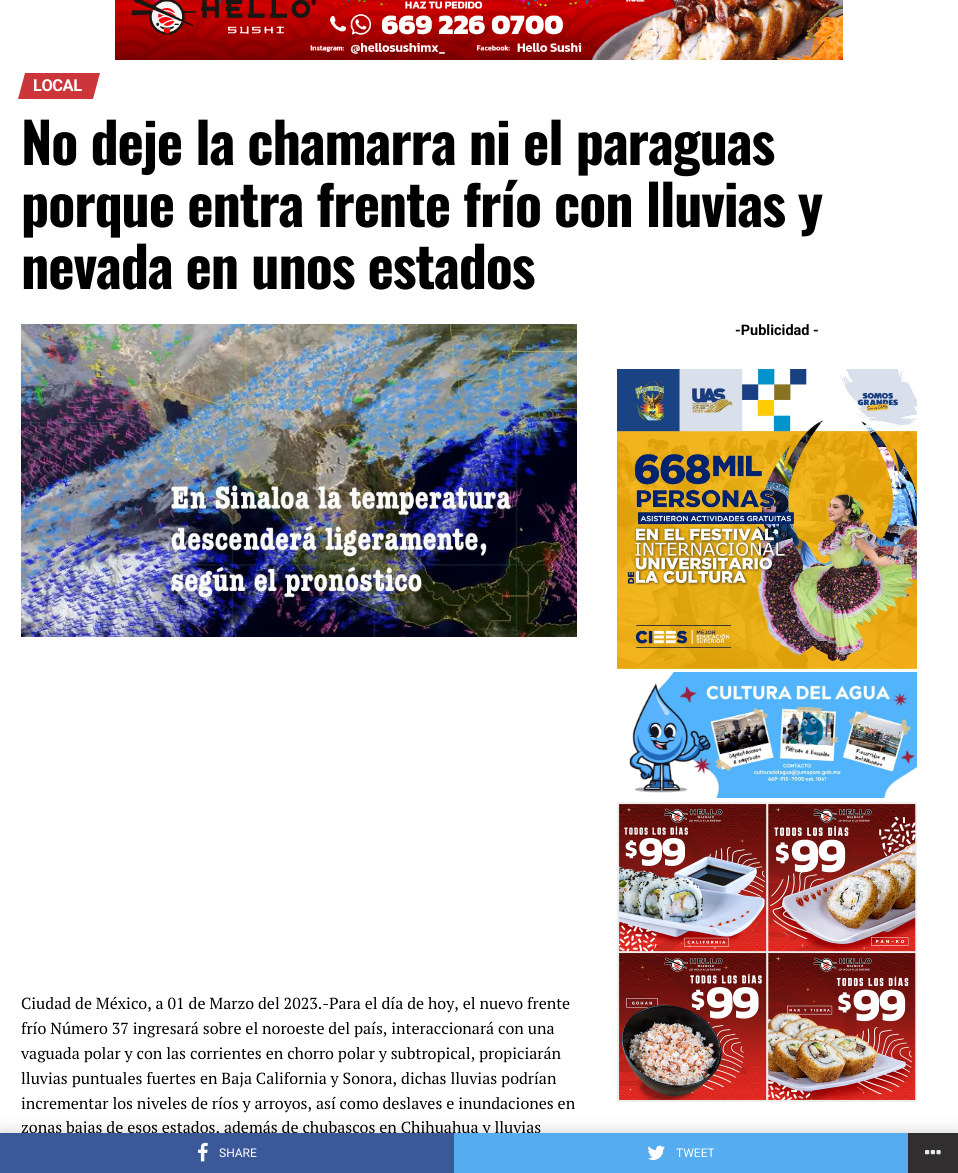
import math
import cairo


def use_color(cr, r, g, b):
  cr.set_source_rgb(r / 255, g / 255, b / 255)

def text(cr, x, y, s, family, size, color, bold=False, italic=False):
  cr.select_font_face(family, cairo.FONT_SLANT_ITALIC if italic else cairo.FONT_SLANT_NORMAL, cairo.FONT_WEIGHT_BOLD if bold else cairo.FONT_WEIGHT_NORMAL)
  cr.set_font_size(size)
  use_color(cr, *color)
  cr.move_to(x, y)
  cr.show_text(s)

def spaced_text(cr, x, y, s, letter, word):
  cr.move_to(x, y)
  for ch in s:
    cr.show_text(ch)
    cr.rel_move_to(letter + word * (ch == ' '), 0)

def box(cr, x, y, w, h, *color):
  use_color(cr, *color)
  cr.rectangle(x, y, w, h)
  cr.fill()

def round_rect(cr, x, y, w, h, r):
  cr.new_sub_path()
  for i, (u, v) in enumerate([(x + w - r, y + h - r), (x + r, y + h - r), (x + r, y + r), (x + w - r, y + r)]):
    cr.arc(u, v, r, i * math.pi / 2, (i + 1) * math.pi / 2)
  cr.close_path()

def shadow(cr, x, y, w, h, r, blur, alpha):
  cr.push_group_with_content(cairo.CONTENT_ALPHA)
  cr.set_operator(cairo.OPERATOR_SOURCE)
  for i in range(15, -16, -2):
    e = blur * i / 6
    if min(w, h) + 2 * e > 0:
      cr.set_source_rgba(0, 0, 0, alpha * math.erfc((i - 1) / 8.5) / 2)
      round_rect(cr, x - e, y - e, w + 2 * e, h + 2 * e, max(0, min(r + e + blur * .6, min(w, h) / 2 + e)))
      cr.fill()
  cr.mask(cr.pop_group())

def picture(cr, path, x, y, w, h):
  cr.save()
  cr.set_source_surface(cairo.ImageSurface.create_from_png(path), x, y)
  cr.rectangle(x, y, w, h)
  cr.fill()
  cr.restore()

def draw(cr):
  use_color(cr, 255, 255, 255)
  cr.paint()
  picture(cr, "img_01.png", 115, 0, 728, 60)
  use_color(cr, 204, 53, 58)
  cr.new_path()
  cr.move_to(25, 73)
  cr.line_to(100, 73)
  cr.line_to(93, 99)
  cr.line_to(18, 99)
  cr.close_path()
  cr.fill()
  picture(cr, "img_02.png", 617, 369, 300, 300)
  picture(cr, "img_03.png", 629, 672, 288, 126)
  picture(cr, "img_04.png", 617, 802, 300, 300)
  picture(cr, "img_05.png", 21, 324, 556, 313)
  use_color(cr, 0, 0, 0)
  shadow(cr, 0, 1133, 958, 40, 0, 8, 0.2)
  box(cr, 908, 1133, 50, 40, 48, 46, 47)
  picture(cr, "img_08.png", 925, 1150, 16, 5)
  cr.select_font_face("Roboto", cairo.FONT_SLANT_NORMAL, cairo.FONT_WEIGHT_BOLD)
  cr.set_font_size(16.5)
  use_color(cr, 255, 255, 255)
  spaced_text(cr, 33, 91, "LOCAL", -0.5, 0)
  cr.select_font_face("Oswald", cairo.FONT_SLANT_NORMAL, cairo.FONT_WEIGHT_BOLD)
  cr.set_font_size(56)
  use_color(cr, 0, 0, 0)
  spaced_text(cr, 21, 165, "No deje la chamarra ni el paraguas", -1.1, 0)
  spaced_text(cr, 21, 227, "porque entra frente frío con lluvias y", -1.1, 0)
  spaced_text(cr, 21, 289, "nevada en unos estados", -1.1, 0)
  text(cr, 735, 335, "-Publicidad -", "Roboto", 14.5, (0, 0, 0), bold=True)
  text(cr, 21, 1009, "Ciudad de México, a 01 de Marzo del 2023.-Para el día de hoy, el nuevo frente", "PT Serif", 16, (0, 0, 0))
  text(cr, 21, 1034, "frío Número 37 ingresará sobre el noroeste del país, interaccionará con una", "PT Serif", 16, (0, 0, 0))
  text(cr, 21, 1059, "vaguada polar y con las corrientes en chorro polar y subtropical, propiciarán", "PT Serif", 16, (0, 0, 0))
  text(cr, 21, 1084, "lluvias puntuales fuertes en Baja California y Sonora, dichas lluvias podrían", "PT Serif", 16, (0, 0, 0))
  text(cr, 21, 1109, "incrementar los niveles de ríos y arroyos, así como deslaves e inundaciones en", "PT Serif", 16, (0, 0, 0))
  text(cr, 21, 1133, "zonas bajas de esos estados, además de chubascos en Chihuahua y lluvias", "PT Serif", 16, (0, 0, 0))
  box(cr, 0, 1133, 454, 40, 59, 89, 152)
  picture(cr, "img_06.png", 198, 1142, 10, 20)
  text(cr, 219, 1157, "SHARE", "Roboto", 12, (255, 255, 255))
  box(cr, 454, 1133, 454, 40, 85, 172, 238)
  picture(cr, "img_07.png", 647, 1145, 18, 15)
  text(cr, 676, 1157, "TWEET", "Roboto", 12, (255, 255, 255))


surface = cairo.ImageSurface(cairo.FORMAT_RGB24, 958, 1173)
cr = cairo.Context(surface)
options = cairo.FontOptions()
options.set_hint_metrics(cairo.HINT_METRICS_OFF)
options.set_hint_style(cairo.HINT_STYLE_NONE)
cr.set_font_options(options)
cr.set_miter_limit(4)
draw(cr)
surface.write_to_png("out.png")
